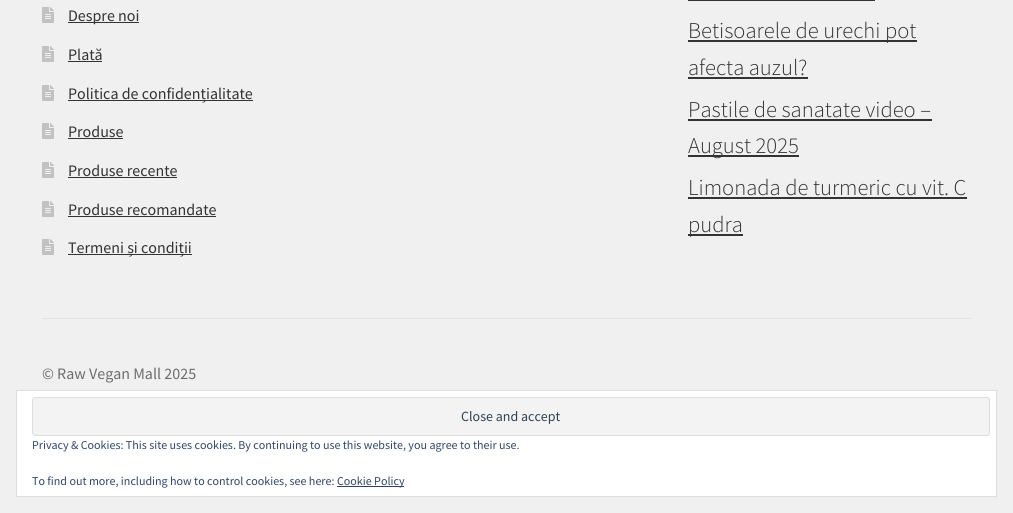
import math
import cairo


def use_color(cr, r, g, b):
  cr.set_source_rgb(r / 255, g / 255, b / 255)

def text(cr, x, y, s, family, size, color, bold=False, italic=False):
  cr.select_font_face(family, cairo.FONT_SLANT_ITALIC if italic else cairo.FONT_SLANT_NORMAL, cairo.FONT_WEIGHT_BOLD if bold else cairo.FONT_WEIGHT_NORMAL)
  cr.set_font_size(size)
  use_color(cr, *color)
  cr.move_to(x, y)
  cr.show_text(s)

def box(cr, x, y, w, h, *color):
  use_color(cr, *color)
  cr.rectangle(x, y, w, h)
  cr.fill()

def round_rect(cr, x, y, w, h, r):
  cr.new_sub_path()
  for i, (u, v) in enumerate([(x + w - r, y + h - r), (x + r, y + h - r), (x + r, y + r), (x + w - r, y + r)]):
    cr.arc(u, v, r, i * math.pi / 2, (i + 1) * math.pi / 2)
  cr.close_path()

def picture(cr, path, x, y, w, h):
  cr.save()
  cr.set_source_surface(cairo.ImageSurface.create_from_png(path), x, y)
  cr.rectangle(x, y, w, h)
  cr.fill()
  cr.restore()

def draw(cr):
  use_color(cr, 240, 240, 240)
  cr.paint()
  box(cr, 42, 318, 929, 1, 228, 228, 228)
  picture(cr, "img_01.png", 42, 7, 12, 16)
  box(cr, 68, 22, 71, 1, 51, 51, 51)
  picture(cr, "img_01.png", 42, 46, 12, 16)
  box(cr, 68, 61, 34, 1, 51, 51, 51)
  picture(cr, "img_01.png", 42, 85, 12, 16)
  box(cr, 68, 100, 185, 1, 51, 51, 51)
  picture(cr, "img_01.png", 42, 123, 12, 16)
  box(cr, 68, 138, 55, 1, 51, 51, 51)
  picture(cr, "img_01.png", 42, 162, 12, 16)
  box(cr, 68, 177, 109, 1, 51, 51, 51)
  picture(cr, "img_01.png", 42, 201, 12, 16)
  box(cr, 68, 216, 148, 1, 51, 51, 51)
  picture(cr, "img_01.png", 42, 239, 12, 16)
  box(cr, 68, 254, 124, 1, 51, 51, 51)
  box(cr, 688, 0, 187, 1, 51, 51, 51)
  box(cr, 688, 40, 229, 2, 51, 51, 51)
  box(cr, 688, 77, 120, 2, 51, 51, 51)
  box(cr, 688, 119, 244, 2, 51, 51, 51)
  box(cr, 688, 155, 111, 2, 51, 51, 51)
  box(cr, 688, 197, 279, 2, 51, 51, 51)
  box(cr, 688, 234, 55, 2, 51, 51, 51)
  use_color(cr, 255, 255, 255)
  cr.rectangle(16.5, 390.5, 980, 106)
  cr.fill_preserve()
  use_color(cr, 222, 222, 222)
  cr.set_line_width(1)
  cr.stroke()
  use_color(cr, 243, 243, 243)
  round_rect(cr, 32.5, 397.5, 957, 38, 2.5)
  cr.fill_preserve()
  use_color(cr, 222, 222, 222)
  cr.stroke()
  box(cr, 337, 486, 67, 1, 46, 68, 103)
  text(cr, 68, 21, "Despre noi", "Source Sans Pro", 16, (51, 51, 51))
  text(cr, 68, 60, "Plată", "Source Sans Pro", 16, (51, 51, 51))
  text(cr, 68, 99, "Politica de confidențialitate", "Source Sans Pro", 16, (51, 51, 51))
  text(cr, 68, 137, "Produse", "Source Sans Pro", 16, (51, 51, 51))
  text(cr, 68, 176, "Produse recente", "Source Sans Pro", 16, (51, 51, 51))
  text(cr, 68, 215, "Produse recomandate", "Source Sans Pro", 16, (51, 51, 51))
  text(cr, 68, 253, "Termeni și condiții", "Source Sans Pro", 16, (51, 51, 51))
  text(cr, 688, 38, "Betisoarele de urechi pot", "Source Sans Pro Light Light", 22.6, (51, 51, 51))
  text(cr, 688, 75, "afecta auzul?", "Source Sans Pro Light Light", 22.6, (51, 51, 51))
  text(cr, 688, 117, "Pastile de sanatate video –", "Source Sans Pro Light Light", 22.6, (51, 51, 51))
  text(cr, 688, 153, "August 2025", "Source Sans Pro Light Light", 22.6, (51, 51, 51))
  text(cr, 688, 195, "Limonada de turmeric cu vit. C", "Source Sans Pro Light Light", 22.6, (51, 51, 51))
  text(cr, 688, 232, "pudra", "Source Sans Pro Light Light", 22.6, (51, 51, 51))
  text(cr, 42, 379, "© Raw Vegan Mall 2025", "Source Sans Pro", 16, (109, 109, 109))
  text(cr, 461, 421, "Close and accept", "Source Sans Pro", 14, (46, 68, 83))
  text(cr, 32, 449, "Privacy & Cookies: This site uses cookies. By continuing to use this website, you agree to their use.", "Source Sans Pro", 12, (46, 68, 103))
  text(cr, 32, 485, "To find out more, including how to control cookies, see here:", "Source Sans Pro", 12, (46, 68, 103))
  text(cr, 337, 485, "Cookie Policy", "Source Sans Pro", 12, (46, 68, 103))


surface = cairo.ImageSurface(cairo.FORMAT_RGB24, 1013, 513)
cr = cairo.Context(surface)
options = cairo.FontOptions()
options.set_hint_metrics(cairo.HINT_METRICS_OFF)
options.set_hint_style(cairo.HINT_STYLE_NONE)
cr.set_font_options(options)
cr.set_miter_limit(4)
draw(cr)
surface.write_to_png("out.png")
